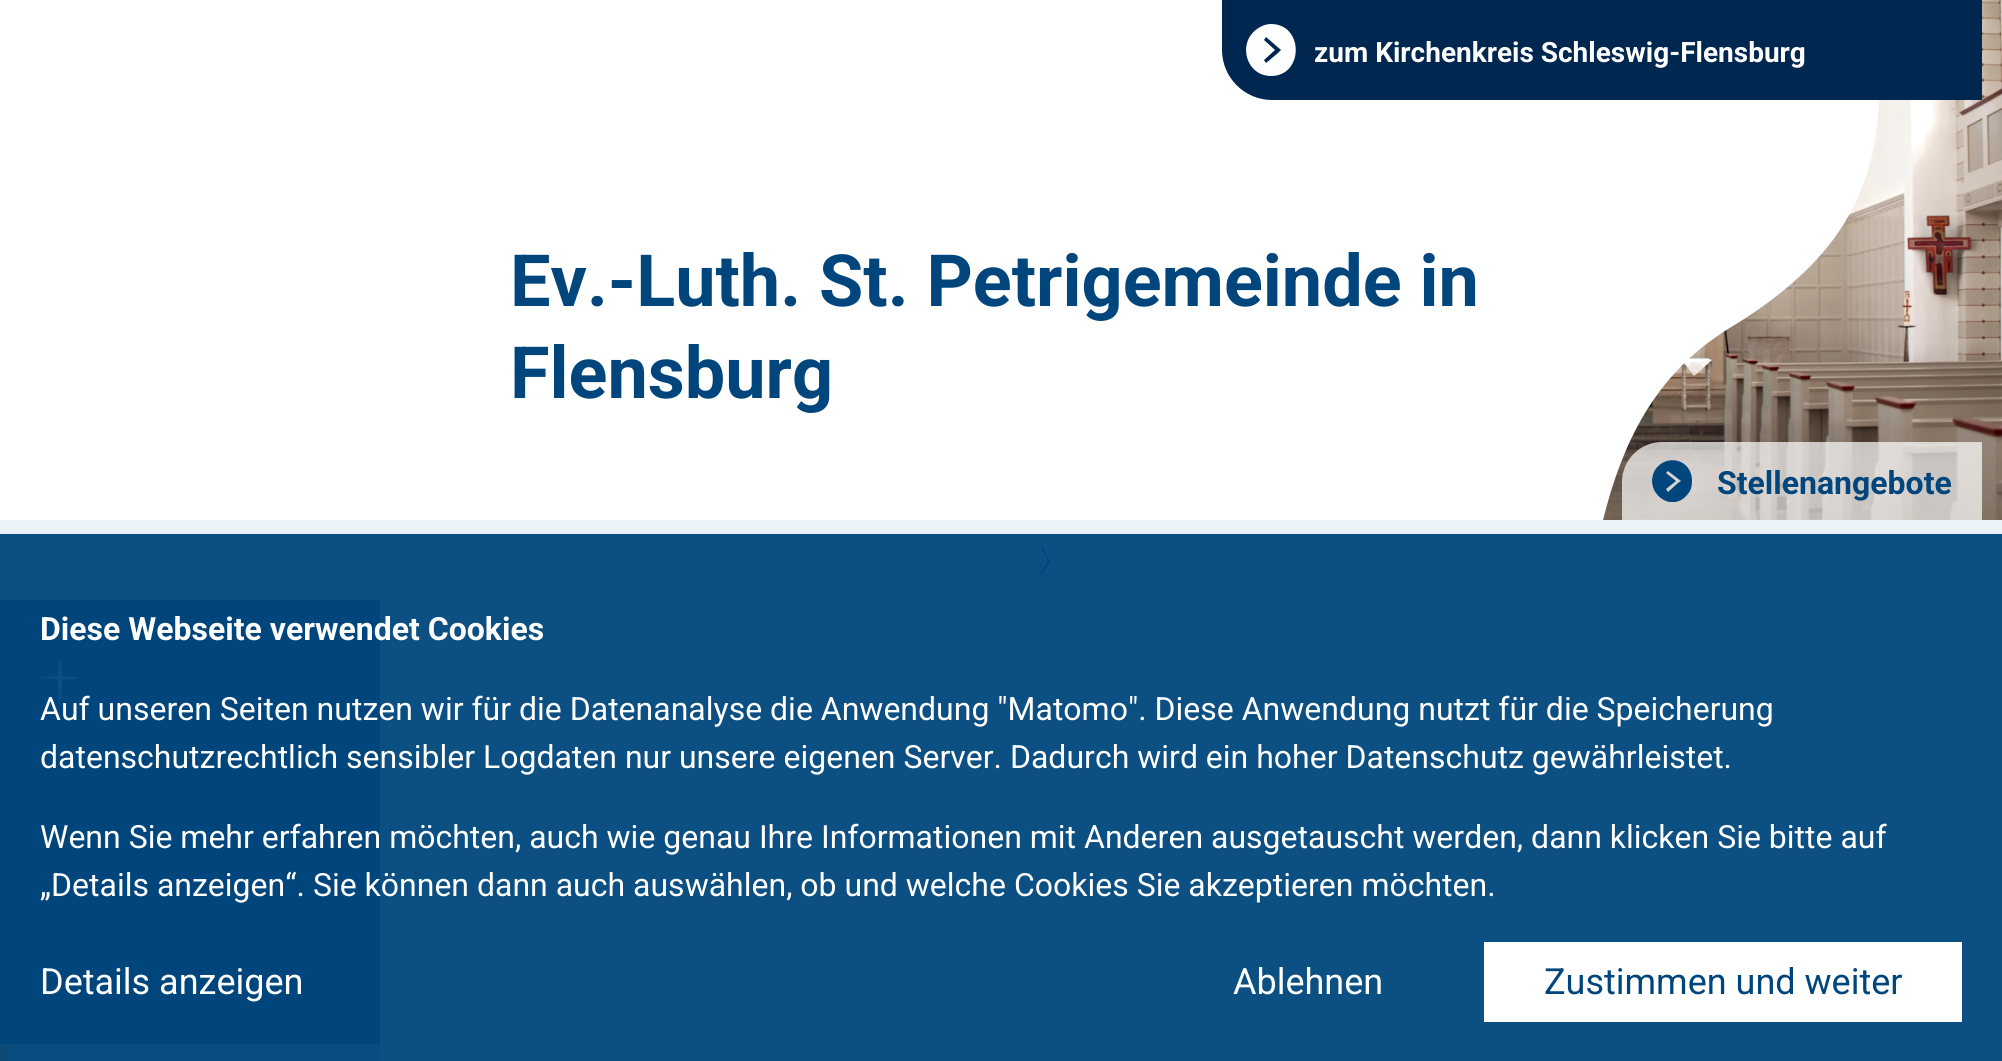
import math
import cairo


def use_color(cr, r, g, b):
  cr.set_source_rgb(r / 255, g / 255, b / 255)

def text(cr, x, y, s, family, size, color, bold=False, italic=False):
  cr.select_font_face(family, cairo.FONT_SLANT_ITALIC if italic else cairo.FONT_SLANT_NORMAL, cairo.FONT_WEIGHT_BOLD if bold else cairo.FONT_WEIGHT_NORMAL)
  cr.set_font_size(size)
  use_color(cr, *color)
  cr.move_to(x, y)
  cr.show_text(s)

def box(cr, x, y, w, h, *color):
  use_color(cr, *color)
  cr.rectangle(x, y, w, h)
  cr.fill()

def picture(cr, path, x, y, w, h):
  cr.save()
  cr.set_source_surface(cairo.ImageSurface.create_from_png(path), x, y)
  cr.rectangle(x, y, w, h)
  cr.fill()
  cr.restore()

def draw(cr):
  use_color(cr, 234, 243, 250)
  cr.paint()
  box(cr, 0, 534, 2002, 527, 12, 79, 131)
  picture(cr, "img_01.png", 1603, 0, 399, 520)
  use_color(cr, 255, 255, 255)
  cr.new_path()
  cr.move_to(-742, 0)
  cr.line_to(-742, 520)
  cr.line_to(1603, 520)
  cr.curve_to(1622, 444, 1654, 375, 1728, 329)
  cr.curve_to(1893, 230, 1881, 129, 1880, 0)
  cr.close_path()
  cr.fill()
  use_color(cr, 0, 39, 80)
  cr.new_path()
  cr.move_to(1222, 0)
  cr.line_to(1982, 0)
  cr.line_to(1982, 100)
  cr.line_to(1272, 100)
  cr.curve_to(1244.5, 100, 1222, 77.5, 1222, 50)
  cr.close_path()
  cr.fill()
  use_color(cr, 255, 255, 255)
  cr.new_path()
  cr.move_to(1271, 24)
  cr.curve_to(1266, 24, 1261, 26, 1257, 29)
  cr.curve_to(1237, 43, 1246, 76, 1271, 76)
  cr.curve_to(1304, 76, 1304, 24, 1271, 24)
  cr.close_path()
  cr.move_to(1278, 53)
  cr.line_to(1266, 63)
  cr.line_to(1264, 60)
  cr.line_to(1275, 50)
  cr.line_to(1264, 40)
  cr.line_to(1266, 37)
  cr.line_to(1281, 50)
  cr.close_path()
  cr.fill()
  cr.set_source_rgba(1, 1, 1, 0.7)
  cr.new_path()
  cr.move_to(1662, 442)
  cr.line_to(1982, 442)
  cr.line_to(1982, 520)
  cr.line_to(1622, 520)
  cr.line_to(1622, 482)
  cr.curve_to(1622, 460, 1640, 442, 1662, 442)
  cr.close_path()
  cr.fill()
  cr.save()
  cr.rectangle(1652, 460, 42, 42)
  cr.clip()
  use_color(cr, 0, 70, 125)
  cr.set_fill_rule(cairo.FILL_RULE_EVEN_ODD)
  cr.new_path()
  cr.move_to(1655, 470)
  cr.curve_to(1666, 453, 1692, 459, 1692, 481)
  cr.curve_to(1692, 486, 1691, 491, 1687, 495)
  cr.curve_to(1671, 514, 1643, 492, 1655, 470)
  cr.close_path()
  cr.move_to(1678, 483)
  cr.line_to(1681, 481)
  cr.line_to(1668, 471)
  cr.line_to(1666, 473)
  cr.line_to(1676, 481)
  cr.line_to(1666, 489)
  cr.line_to(1668, 492)
  cr.close_path()
  cr.fill()
  cr.restore()
  use_color(cr, 0, 70, 125)
  cr.new_path()
  cr.move_to(1040.5, 548)
  cr.line_to(1042, 547)
  cr.line_to(1050, 561)
  cr.line_to(1048.5, 562)
  cr.close_path()
  cr.fill()
  cr.new_path()
  cr.move_to(1048.5, 560)
  cr.line_to(1050, 561)
  cr.line_to(1042, 575)
  cr.line_to(1040.5, 574)
  cr.close_path()
  cr.fill()
  box(cr, 0, 600, 380, 444, 0, 70, 125)
  use_color(cr, 13, 79, 132)
  cr.new_path()
  cr.move_to(78, 677)
  cr.line_to(62, 676)
  cr.line_to(61, 660)
  cr.line_to(59, 660)
  cr.line_to(58, 676)
  cr.line_to(42, 677)
  cr.line_to(42, 678)
  cr.line_to(58, 679)
  cr.line_to(59, 700)
  cr.line_to(61, 700)
  cr.line_to(62, 680)
  cr.line_to(78, 678)
  cr.close_path()
  cr.fill()
  box(cr, 10, 1044, 370, 17, 8, 76, 130)
  box(cr, 0, 1044, 10, 17, 13, 74, 119)
  box(cr, 1484, 942, 478, 80, 255, 255, 255)
  text(cr, 1314, 62, "zum Kirchenkreis Schleswig-Flensburg", "Roboto", 28, (255, 255, 255), bold=True)
  text(cr, 510, 306, "Ev.-Luth. St. Petrigemeinde in", "Roboto", 72, (0, 70, 125), bold=True)
  text(cr, 510, 398, "Flensburg", "Roboto", 72, (0, 70, 125), bold=True)
  text(cr, 1717, 494, "Stellenangebote", "Roboto", 32, (0, 70, 125), bold=True)
  text(cr, 40, 640, "Diese Webseite verwendet Cookies", "Roboto", 32, (255, 255, 255), bold=True)
  text(cr, 40, 720, "Auf unseren Seiten nutzen wir für die Datenanalyse die Anwendung \"Matomo\". Diese Anwendung nutzt für die Speicherung", "Roboto", 32, (255, 255, 255))
  text(cr, 40, 768, "datenschutzrechtlich sensibler Logdaten nur unsere eigenen Server. Dadurch wird ein hoher Datenschutz gewährleistet.", "Roboto", 32, (255, 255, 255))
  text(cr, 40, 848, "Wenn Sie mehr erfahren möchten, auch wie genau Ihre Informationen mit Anderen ausgetauscht werden, dann klicken Sie bitte auf", "Roboto", 32, (255, 255, 255))
  text(cr, 40, 896, "„Details anzeigen“. Sie können dann auch auswählen, ob und welche Cookies Sie akzeptieren möchten.", "Roboto", 32, (255, 255, 255))
  text(cr, 40, 994, "Details anzeigen", "Roboto", 36, (255, 255, 255))
  text(cr, 1233, 994, "Ablehnen", "Roboto", 36, (255, 255, 255))
  text(cr, 1544, 994, "Zustimmen und weiter", "Roboto", 36, (0, 70, 125))


surface = cairo.ImageSurface(cairo.FORMAT_RGB24, 2002, 1061)
cr = cairo.Context(surface)
options = cairo.FontOptions()
options.set_hint_metrics(cairo.HINT_METRICS_OFF)
options.set_hint_style(cairo.HINT_STYLE_NONE)
cr.set_font_options(options)
cr.set_miter_limit(4)
draw(cr)
surface.write_to_png("out.png")
